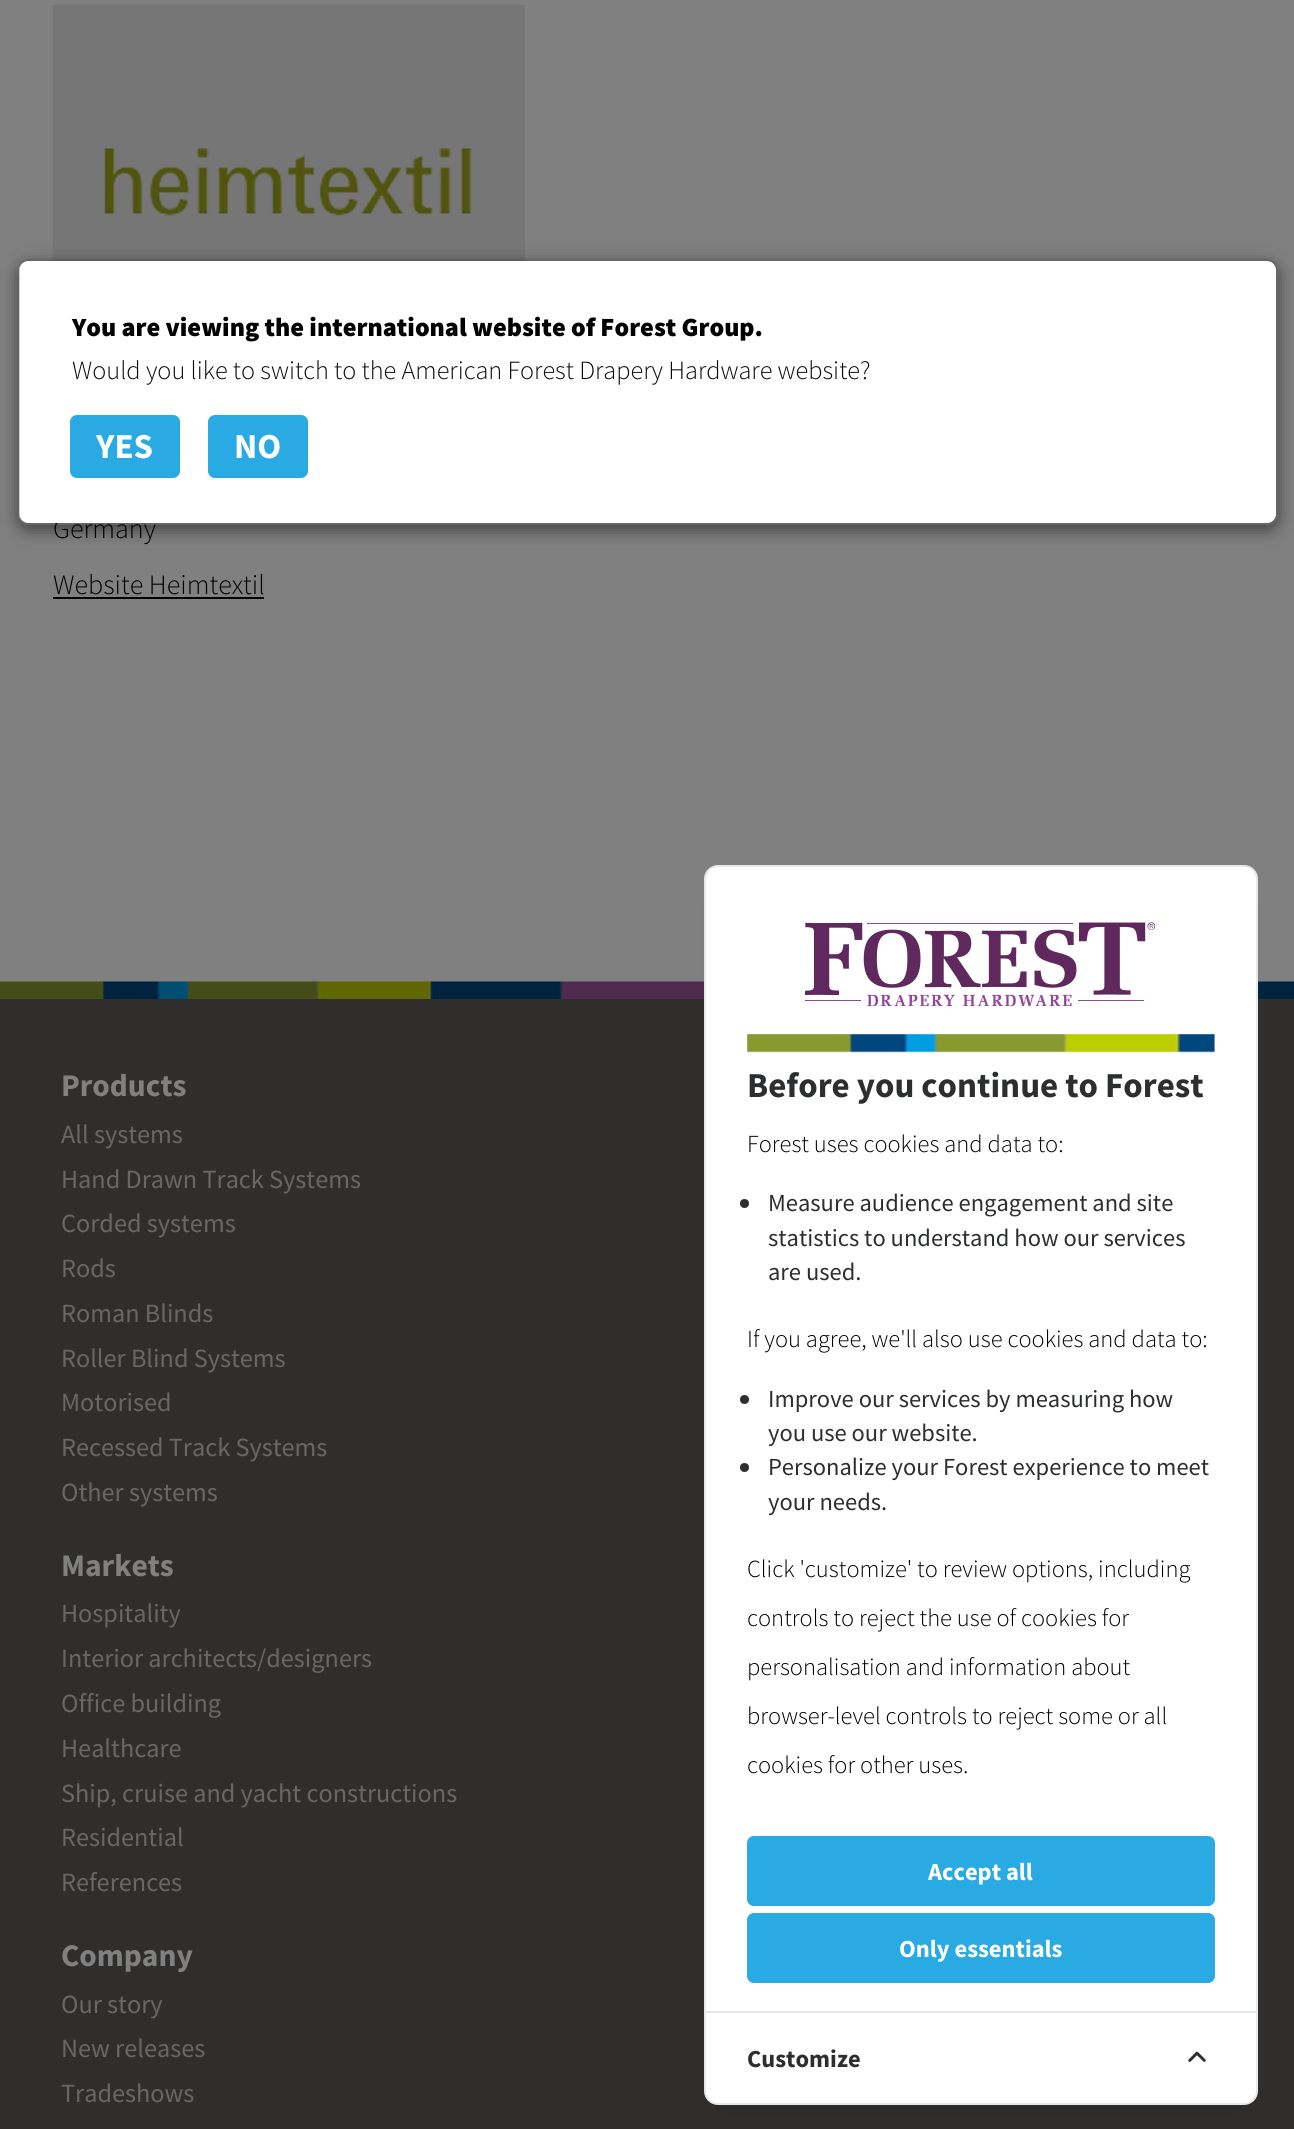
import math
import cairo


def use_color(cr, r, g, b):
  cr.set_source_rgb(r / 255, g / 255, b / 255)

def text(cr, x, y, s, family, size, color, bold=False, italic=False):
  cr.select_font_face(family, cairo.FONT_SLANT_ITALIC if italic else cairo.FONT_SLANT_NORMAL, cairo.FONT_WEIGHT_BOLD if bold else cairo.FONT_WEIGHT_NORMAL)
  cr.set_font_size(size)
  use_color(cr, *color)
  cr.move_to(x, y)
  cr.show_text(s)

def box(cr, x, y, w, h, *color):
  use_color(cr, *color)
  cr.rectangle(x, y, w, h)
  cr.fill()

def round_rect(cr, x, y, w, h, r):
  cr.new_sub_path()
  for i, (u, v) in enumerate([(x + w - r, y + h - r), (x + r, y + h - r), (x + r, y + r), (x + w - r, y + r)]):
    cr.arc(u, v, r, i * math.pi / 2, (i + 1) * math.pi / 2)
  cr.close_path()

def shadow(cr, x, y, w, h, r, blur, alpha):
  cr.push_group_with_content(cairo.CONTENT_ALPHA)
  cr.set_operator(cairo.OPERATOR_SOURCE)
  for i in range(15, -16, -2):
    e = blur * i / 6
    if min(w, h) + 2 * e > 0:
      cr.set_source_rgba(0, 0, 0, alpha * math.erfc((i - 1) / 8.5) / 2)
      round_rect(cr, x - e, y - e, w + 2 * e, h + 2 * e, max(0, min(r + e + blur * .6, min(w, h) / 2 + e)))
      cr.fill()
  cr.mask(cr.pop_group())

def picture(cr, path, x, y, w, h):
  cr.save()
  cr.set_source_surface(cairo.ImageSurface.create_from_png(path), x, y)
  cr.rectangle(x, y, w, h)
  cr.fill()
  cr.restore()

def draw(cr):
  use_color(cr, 128, 128, 128)
  cr.paint()
  picture(cr, "img_01.png", 52, 5, 473, 256)
  cr.save()
  cr.set_fill_rule(cairo.FILL_RULE_EVEN_ODD)
  cr.new_path()
  cr.move_to(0, 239)
  cr.line_to(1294, 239)
  cr.line_to(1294, 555)
  cr.line_to(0, 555)
  cr.close_path()
  cr.move_to(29, 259)
  cr.line_to(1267, 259)
  cr.curve_to(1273, 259, 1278, 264, 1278, 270)
  cr.line_to(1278, 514)
  cr.curve_to(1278, 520, 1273, 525, 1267, 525)
  cr.line_to(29, 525)
  cr.curve_to(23, 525, 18, 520, 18, 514)
  cr.line_to(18, 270)
  cr.curve_to(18, 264, 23, 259, 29, 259)
  cr.close_path()
  cr.clip()
  use_color(cr, 0, 0, 0)
  shadow(cr, 18, 264, 1260, 266, 11, 8, 0.5)
  cr.restore()
  box(cr, 53, 597, 211, 2, 0, 0, 0)
  box(cr, 0, 999, 1294, 1130, 47, 46, 45)
  picture(cr, "img_02.png", 0, 981, 1294, 18)
  use_color(cr, 0, 0, 0)
  shadow(cr, 718, 900, 526, 1212, 0, 10.5, 0.08)
  use_color(cr, 255, 255, 255)
  round_rect(cr, 705, 866, 552, 1238, 13)
  cr.fill_preserve()
  use_color(cr, 231, 232, 233)
  cr.stroke()
  picture(cr, "img_03.png", 805, 922, 350, 84)
  box(cr, 747, 1034, 468, 18, 232, 230, 228)
  picture(cr, "img_04.png", 747, 1034, 468, 19)
  use_color(cr, 44, 46, 48)
  cr.arc(744.5, 1203.5, 4.5, 0, 2 * math.pi)
  cr.fill()
  cr.arc(744.5, 1399.5, 4.5, 0, 2 * math.pi)
  cr.fill()
  cr.arc(744.5, 1467.5, 4.5, 0, 2 * math.pi)
  cr.fill()
  use_color(cr, 41, 170, 227)
  round_rect(cr, 748, 1837, 466, 68, 6)
  cr.fill_preserve()
  cr.stroke()
  round_rect(cr, 748, 1914, 466, 68, 6)
  cr.fill_preserve()
  cr.stroke()
  box(cr, 705, 2011, 552, 2, 231, 232, 233)
  picture(cr, "img_05.png", 1188, 2051, 18, 11)
  text(cr, 53, 538, "Germany", "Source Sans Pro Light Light", 28, (0, 0, 0))
  use_color(cr, 255, 255, 255)
  round_rect(cr, 19, 261, 1257, 262, 9)
  cr.fill()
  round_rect(cr, 19, 260, 1258, 264, 10)
  cr.set_source_rgba(0, 0, 0, 0.2)
  cr.stroke()
  text(cr, 72, 379, "Would you like to switch to the American Forest Drapery Hardware website?", "Source Sans Pro Light Light", 26.25, (13, 10, 10))
  text(cr, 72, 336, "You are viewing the international website of Forest Group.", "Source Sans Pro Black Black", 26.25, (0, 0, 0))
  use_color(cr, 41, 170, 227)
  round_rect(cr, 208, 415, 100, 63, 7)
  cr.fill()
  text(cr, 234, 458, "NO", "Source Sans Pro", 35, (255, 255, 255), bold=True)
  use_color(cr, 41, 170, 227)
  round_rect(cr, 70, 415, 110, 63, 7)
  cr.fill()
  text(cr, 96, 458, "YES", "Source Sans Pro", 35, (255, 255, 255), bold=True)
  text(cr, 53, 594, "Website Heimtextil", "Source Sans Pro Light Light", 28, (0, 0, 0))
  text(cr, 61, 1096, "Products", "Source Sans Pro", 31.5, (128, 128, 128), bold=True)
  text(cr, 61, 1143, "All systems", "Source Sans Pro", 26.25, (103, 103, 102))
  text(cr, 61, 1188, "Hand Drawn Track Systems", "Source Sans Pro", 26.25, (103, 103, 102))
  text(cr, 61, 1232, "Corded systems", "Source Sans Pro", 26.25, (103, 103, 102))
  text(cr, 61, 1277, "Rods", "Source Sans Pro", 26.25, (103, 103, 102))
  text(cr, 61, 1322, "Roman Blinds", "Source Sans Pro", 26.25, (103, 103, 102))
  text(cr, 61, 1367, "Roller Blind Systems", "Source Sans Pro", 26.25, (103, 103, 102))
  text(cr, 61, 1411, "Motorised", "Source Sans Pro", 26.25, (103, 103, 102))
  text(cr, 61, 1456, "Recessed Track Systems", "Source Sans Pro", 26.25, (103, 103, 102))
  text(cr, 61, 1501, "Other systems", "Source Sans Pro", 26.25, (103, 103, 102))
  text(cr, 61, 1576, "Markets", "Source Sans Pro", 31.5, (128, 128, 128), bold=True)
  text(cr, 61, 1622, "Hospitality", "Source Sans Pro", 26.25, (103, 103, 102))
  text(cr, 61, 1667, "Interior architects/designers", "Source Sans Pro", 26.25, (103, 103, 102))
  text(cr, 61, 1712, "Office building", "Source Sans Pro", 26.25, (103, 103, 102))
  text(cr, 61, 1757, "Healthcare", "Source Sans Pro", 26.25, (103, 103, 102))
  text(cr, 61, 1802, "Ship, cruise and yacht constructions", "Source Sans Pro", 26.25, (103, 103, 102))
  text(cr, 61, 1846, "Residential", "Source Sans Pro", 26.25, (103, 103, 102))
  text(cr, 61, 1891, "References", "Source Sans Pro", 26.25, (103, 103, 102))
  text(cr, 61, 1966, "Company", "Source Sans Pro", 31.5, (128, 128, 128), bold=True)
  text(cr, 61, 2013, "Our story", "Source Sans Pro", 26.25, (103, 103, 102))
  text(cr, 61, 2057, "New releases", "Source Sans Pro", 26.25, (103, 103, 102))
  text(cr, 61, 2102, "Tradeshows", "Source Sans Pro", 26.25, (103, 103, 102))
  text(cr, 747, 1097, "Before you continue to Forest", "Source Sans Pro", 35, (44, 46, 48), bold=True)
  text(cr, 747, 1152, "Forest uses cookies and data to:", "Source Sans Pro Light Light", 24.5, (0, 0, 0))
  text(cr, 768, 1211, "Measure audience engagement and site", "Source Sans Pro", 24.5, (44, 46, 48))
  text(cr, 768, 1246, "statistics to understand how our services", "Source Sans Pro", 24.5, (44, 46, 48))
  text(cr, 768, 1280, "are used.", "Source Sans Pro", 24.5, (44, 46, 48))
  text(cr, 747, 1347, "If you agree, we'll also use cookies and data to:", "Source Sans Pro Light Light", 24.5, (0, 0, 0))
  text(cr, 768, 1407, "Improve our services by measuring how", "Source Sans Pro", 24.5, (44, 46, 48))
  text(cr, 768, 1441, "you use our website.", "Source Sans Pro", 24.5, (44, 46, 48))
  text(cr, 768, 1475, "Personalize your Forest experience to meet", "Source Sans Pro", 24.5, (44, 46, 48))
  text(cr, 768, 1510, "your needs.", "Source Sans Pro", 24.5, (44, 46, 48))
  text(cr, 747, 1577, "Click 'customize' to review options, including", "Source Sans Pro Light Light", 24.5, (0, 0, 0))
  text(cr, 747, 1626, "controls to reject the use of cookies for", "Source Sans Pro Light Light", 24.5, (0, 0, 0))
  text(cr, 747, 1675, "personalisation and information about", "Source Sans Pro Light Light", 24.5, (0, 0, 0))
  text(cr, 747, 1724, "browser-level controls to reject some or all", "Source Sans Pro Light Light", 24.5, (0, 0, 0))
  text(cr, 747, 1773, "cookies for other uses.", "Source Sans Pro Light Light", 24.5, (0, 0, 0))
  text(cr, 928, 1880, "Accept all", "Source Sans Pro", 24.5, (255, 255, 255), bold=True)
  text(cr, 899, 1957, "Only essentials", "Source Sans Pro", 24.5, (255, 255, 255), bold=True)
  text(cr, 747, 2067, "Customize", "Source Sans Pro", 24.5, (44, 46, 48), bold=True)


surface = cairo.ImageSurface(cairo.FORMAT_RGB24, 1294, 2129)
cr = cairo.Context(surface)
options = cairo.FontOptions()
options.set_hint_metrics(cairo.HINT_METRICS_OFF)
options.set_hint_style(cairo.HINT_STYLE_NONE)
cr.set_font_options(options)
cr.set_miter_limit(4)
draw(cr)
surface.write_to_png("out.png")
